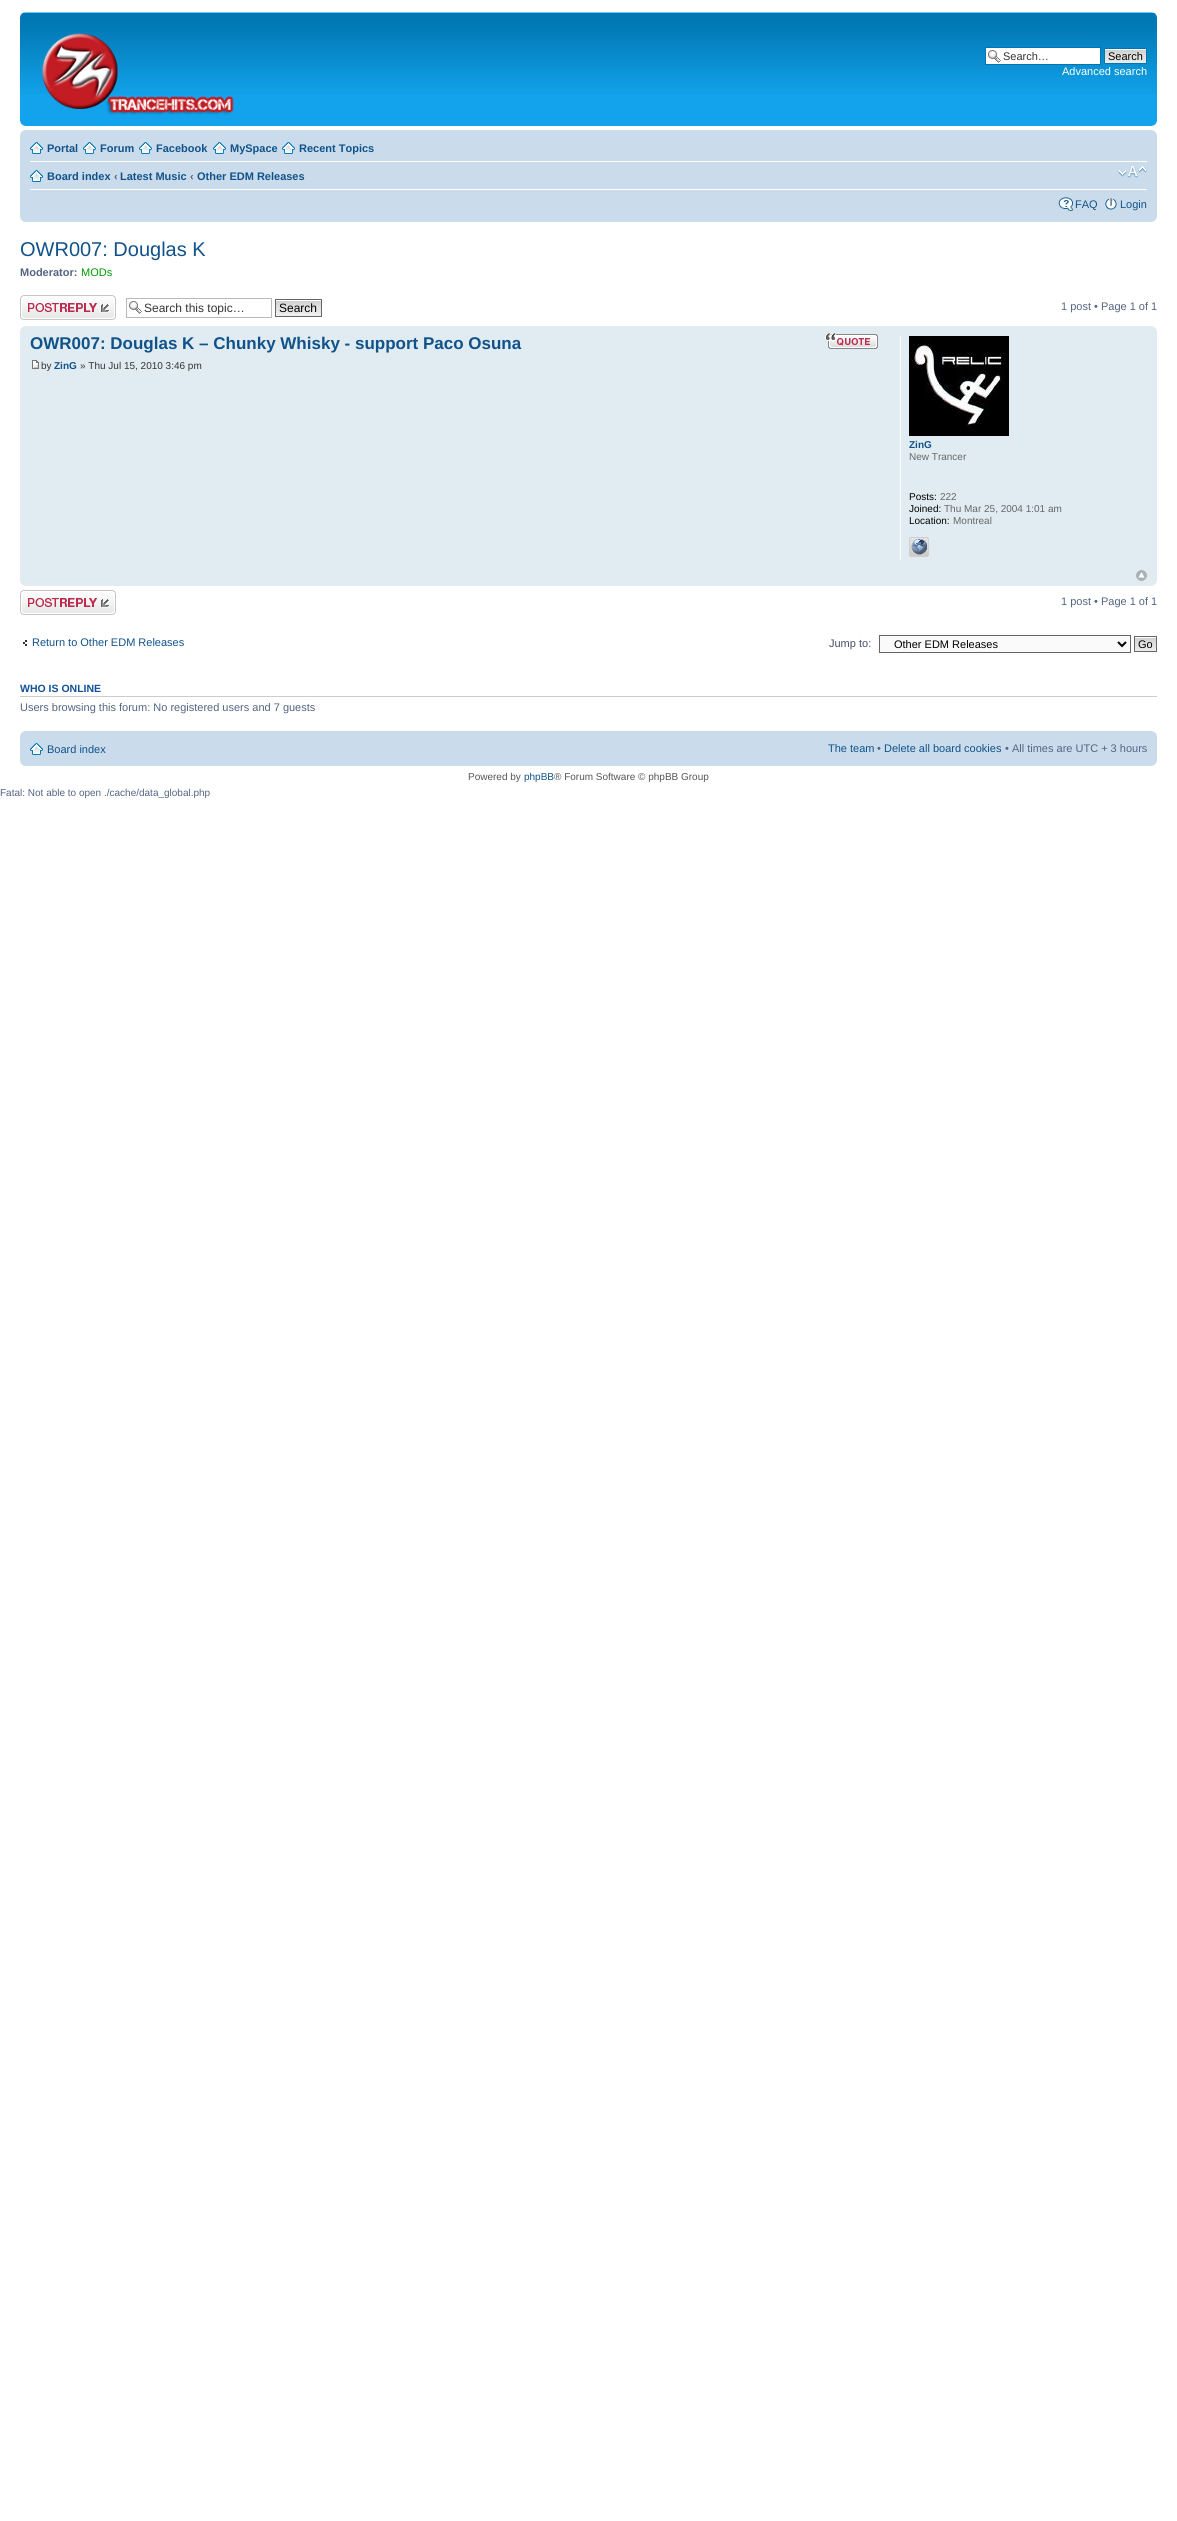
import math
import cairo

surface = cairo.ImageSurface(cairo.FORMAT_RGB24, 1177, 2521)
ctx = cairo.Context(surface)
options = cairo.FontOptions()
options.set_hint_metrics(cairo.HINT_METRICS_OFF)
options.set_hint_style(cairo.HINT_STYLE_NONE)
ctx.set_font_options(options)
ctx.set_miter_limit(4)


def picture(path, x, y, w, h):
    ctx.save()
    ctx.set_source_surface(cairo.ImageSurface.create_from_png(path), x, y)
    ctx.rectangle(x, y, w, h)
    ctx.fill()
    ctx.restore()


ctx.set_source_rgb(1, 1, 1)
ctx.paint()
ctx.set_source_rgb(0.071, 0.639, 0.922)
ctx.rectangle(20, 94, 1137, 32)
ctx.fill()
picture("img1.png", 20, 12, 1137, 82)
picture("img2.png", 20, 12, 5, 5)
picture("img3.png", 1152, 12, 5, 5)
picture("img4.png", 42, 33, 192, 82)
ctx.set_source_rgb(1, 1, 1)
ctx.rectangle(986, 48, 114, 16)
ctx.fill()
picture("img5.png", 988, 50, 13, 13)
ctx.rectangle(985.5, 47.5, 115, 17)
ctx.set_source_rgb(0, 0.459, 0.69)
ctx.set_line_width(1)
ctx.stroke()
ctx.select_font_face("Liberation Sans")
ctx.set_font_size(11)
ctx.set_source_rgb(0.2, 0.2, 0.2)
ctx.move_to(1003, 60)
ctx.show_text("Search…")
picture("img6.png", 1105, 49, 41, 14)
ctx.rectangle(1104.5, 48.5, 42, 15)
ctx.set_source_rgb(0, 0.459, 0.69)
ctx.stroke()
ctx.set_source_rgb(0, 0, 0)
ctx.move_to(1108, 60)
ctx.show_text("Search")
ctx.set_source_rgb(1, 1, 1)
ctx.move_to(1062, 75)
ctx.show_text("Advanced search")
picture("img7.png", 20, 121, 5, 5)
picture("img8.png", 1152, 121, 5, 5)
ctx.set_source_rgb(0.792, 0.863, 0.922)
ctx.rectangle(20, 130, 1137, 92)
ctx.fill()
picture("img9.png", 20, 130, 5, 5)
picture("img10.png", 1152, 130, 5, 5)
ctx.set_source_rgb(1, 1, 1)
ctx.rectangle(30, 161, 1117, 1)
ctx.fill()
picture("img11.png", 30, 142, 13, 12)
ctx.select_font_face("Liberation Sans", cairo.FONT_SLANT_NORMAL, cairo.FONT_WEIGHT_BOLD)
ctx.set_source_rgb(0.063, 0.322, 0.537)
ctx.move_to(47, 152)
ctx.show_text("Portal")
picture("img11.png", 83, 142, 13, 12)
ctx.move_to(100, 152)
ctx.show_text("Forum")
picture("img11.png", 139, 142, 13, 12)
ctx.move_to(156, 152)
ctx.show_text("Facebook")
picture("img11.png", 213, 142, 13, 12)
ctx.move_to(230, 152)
ctx.show_text("MySpace")
picture("img11.png", 282, 142, 13, 12)
ctx.move_to(299, 152)
ctx.show_text("Recent Topics")
ctx.set_source_rgb(1, 1, 1)
ctx.rectangle(30, 189, 1117, 1)
ctx.fill()
picture("img11.png", 30, 170, 13, 12)
ctx.set_source_rgb(0.063, 0.322, 0.537)
ctx.move_to(47, 180)
ctx.show_text("Board index")
ctx.set_source_rgb(0.325, 0.392, 0.51)
ctx.move_to(114, 180)
ctx.show_text("‹")
ctx.set_source_rgb(0.063, 0.322, 0.537)
ctx.move_to(120, 180)
ctx.show_text("Latest Music")
ctx.set_source_rgb(0.325, 0.392, 0.51)
ctx.move_to(190, 180)
ctx.show_text("‹")
ctx.set_source_rgb(0.063, 0.322, 0.537)
ctx.move_to(197, 180)
ctx.show_text("Other EDM Releases")
picture("img12.png", 1118, 166, 29, 12)
picture("img13.png", 1058, 197, 16, 14)
ctx.select_font_face("Liberation Sans")
ctx.move_to(1075, 208)
ctx.show_text("FAQ")
picture("img14.png", 1105, 198, 12, 12)
ctx.move_to(1120, 208)
ctx.show_text("Login")
picture("img15.png", 20, 217, 5, 5)
picture("img16.png", 1152, 217, 5, 5)
ctx.set_font_size(20)
ctx.move_to(20, 256)
ctx.show_text("OWR007: Douglas K")
ctx.select_font_face("Liberation Sans", cairo.FONT_SLANT_NORMAL, cairo.FONT_WEIGHT_BOLD)
ctx.set_font_size(11)
ctx.set_source_rgb(0.325, 0.392, 0.51)
ctx.move_to(20, 276)
ctx.show_text("Moderator:")
ctx.select_font_face("Liberation Sans")
ctx.set_source_rgb(0, 0.6, 0)
ctx.move_to(81, 276)
ctx.show_text("MODs")
picture("img17.png", 20, 295, 96, 25)
picture("img5.png", 129, 301, 13, 13)
ctx.rectangle(126.5, 298.5, 145, 19)
ctx.set_source_rgb(0.706, 0.729, 0.753)
ctx.stroke()
ctx.set_font_size(12)
ctx.set_source_rgb(0.2, 0.2, 0.2)
ctx.move_to(144, 312)
ctx.show_text("Search this topic…")
picture("img18.png", 276, 300, 45, 16)
ctx.rectangle(275.5, 299.5, 46, 17)
ctx.set_source_rgb(0.4, 0.4, 0.4)
ctx.stroke()
ctx.set_source_rgb(0, 0, 0)
ctx.move_to(279, 312)
ctx.show_text("Search")
ctx.set_font_size(11)
ctx.set_source_rgb(0.325, 0.392, 0.51)
ctx.move_to(1061, 310)
ctx.show_text("1 post • Page 1 of 1")
ctx.set_source_rgb(0.882, 0.922, 0.949)
ctx.rectangle(20, 326, 1137, 260)
ctx.fill()
picture("img19.png", 20, 326, 5, 5)
picture("img20.png", 1152, 326, 5, 5)
ctx.select_font_face("Liberation Sans", cairo.FONT_SLANT_NORMAL, cairo.FONT_WEIGHT_BOLD)
ctx.set_font_size(17)
ctx.set_source_rgb(0.063, 0.322, 0.537)
ctx.move_to(30, 349)
ctx.show_text("OWR007: Douglas K – Chunky Whisky - support Paco Osuna")
picture("img21.png", 825, 332, 11, 9)
picture("img22.png", 826, 333, 52, 16)
picture("img23.png", 32, 360, 7, 9)
ctx.select_font_face("Liberation Sans")
ctx.set_font_size(10)
ctx.set_source_rgb(0.2, 0.2, 0.2)
ctx.move_to(41, 369)
ctx.show_text("by")
ctx.select_font_face("Liberation Sans", cairo.FONT_SLANT_NORMAL, cairo.FONT_WEIGHT_BOLD)
ctx.set_source_rgb(0.063, 0.322, 0.537)
ctx.move_to(54, 369)
ctx.show_text("ZinG")
ctx.select_font_face("Liberation Sans")
ctx.set_source_rgb(0.2, 0.2, 0.2)
ctx.move_to(80, 369)
ctx.show_text("» Thu Jul 15, 2010 3:46 pm")
ctx.set_source_rgb(1, 1, 1)
ctx.rectangle(900, 336, 1, 224)
ctx.fill()
picture("img24.png", 909, 336, 100, 100)
ctx.select_font_face("Liberation Sans", cairo.FONT_SLANT_NORMAL, cairo.FONT_WEIGHT_BOLD)
ctx.set_source_rgb(0.063, 0.322, 0.537)
ctx.move_to(909, 448)
ctx.show_text("ZinG")
ctx.select_font_face("Liberation Sans")
ctx.set_source_rgb(0.4, 0.4, 0.4)
ctx.move_to(909, 460)
ctx.show_text("New Trancer")
ctx.set_source_rgb(0, 0, 0)
ctx.move_to(909, 500)
ctx.show_text("Posts:")
ctx.set_source_rgb(0.4, 0.4, 0.4)
ctx.move_to(940, 500)
ctx.show_text("222")
ctx.set_source_rgb(0, 0, 0)
ctx.move_to(909, 512)
ctx.show_text("Joined:")
ctx.set_source_rgb(0.4, 0.4, 0.4)
ctx.move_to(944, 512)
ctx.show_text("Thu Mar 25, 2004 1:01 am")
ctx.set_source_rgb(0, 0, 0)
ctx.move_to(909, 524)
ctx.show_text("Location:")
ctx.set_source_rgb(0.4, 0.4, 0.4)
ctx.move_to(953, 524)
ctx.show_text("Montreal")
picture("img25.png", 909, 537, 20, 20)
picture("img26.png", 1136, 570, 11, 11)
picture("img27.png", 20, 581, 5, 5)
picture("img28.png", 1152, 581, 5, 5)
picture("img17.png", 20, 590, 96, 25)
ctx.set_font_size(11)
ctx.set_source_rgb(0.325, 0.392, 0.51)
ctx.move_to(1061, 605)
ctx.show_text("1 post • Page 1 of 1")
picture("img29.png", 23, 640, 4, 6)
ctx.set_source_rgb(0.063, 0.322, 0.537)
ctx.move_to(32, 646)
ctx.show_text("Return to Other EDM Releases")
ctx.set_source_rgb(0.259, 0.314, 0.404)
ctx.move_to(829, 647)
ctx.show_text("Jump to:")
ctx.set_source_rgb(0.98, 0.98, 0.98)
ctx.rectangle(879.5, 635.5, 251, 17)
ctx.fill_preserve()
ctx.set_source_rgb(0.4, 0.4, 0.4)
ctx.stroke()
ctx.new_path()
ctx.move_to(1118, 642)
ctx.line_to(1122, 646)
ctx.line_to(1126, 642)
ctx.set_source_rgb(0, 0, 0)
ctx.set_line_width(2)
ctx.stroke()
ctx.move_to(894, 648)
ctx.show_text("Other EDM Releases")
picture("img30.png", 1135, 637, 21, 14)
ctx.rectangle(1134.5, 636.5, 22, 15)
ctx.set_source_rgb(0.4, 0.4, 0.4)
ctx.set_line_width(1)
ctx.stroke()
ctx.set_source_rgb(0, 0, 0)
ctx.move_to(1138, 648)
ctx.show_text("Go")
ctx.set_source_rgb(0.8, 0.8, 0.8)
ctx.rectangle(20, 696, 1137, 1)
ctx.fill()
ctx.select_font_face("Liberation Sans", cairo.FONT_SLANT_NORMAL, cairo.FONT_WEIGHT_BOLD)
ctx.set_font_size(10.5)
ctx.set_source_rgb(0.067, 0.314, 0.596)
ctx.move_to(20, 692)
ctx.show_text("WHO IS ONLINE")
ctx.select_font_face("Liberation Sans")
ctx.set_font_size(11)
ctx.set_source_rgb(0.325, 0.392, 0.51)
ctx.move_to(20, 711)
ctx.show_text("Users browsing this forum: No registered users and 7 guests")
ctx.set_source_rgb(0.792, 0.863, 0.922)
ctx.rectangle(20, 731, 1137, 35)
ctx.fill()
picture("img9.png", 20, 731, 5, 5)
picture("img10.png", 1152, 731, 5, 5)
picture("img11.png", 30, 743, 13, 12)
ctx.set_source_rgb(0.063, 0.322, 0.537)
ctx.move_to(47, 753)
ctx.show_text("Board index")
ctx.move_to(828, 752)
ctx.show_text("The team")
ctx.set_source_rgb(0.325, 0.392, 0.51)
ctx.move_to(877, 752)
ctx.show_text("•")
ctx.set_source_rgb(0.063, 0.322, 0.537)
ctx.move_to(884, 752)
ctx.show_text("Delete all board cookies")
ctx.set_source_rgb(0.325, 0.392, 0.51)
ctx.move_to(1005, 752)
ctx.show_text("• All times are UTC + 3 hours")
picture("img15.png", 20, 761, 5, 5)
picture("img16.png", 1152, 761, 5, 5)
ctx.set_font_size(10)
ctx.set_source_rgb(0.333, 0.333, 0.333)
ctx.move_to(468, 780)
ctx.show_text("Powered by")
ctx.set_source_rgb(0.063, 0.322, 0.537)
ctx.move_to(524, 780)
ctx.show_text("phpBB")
ctx.set_source_rgb(0.333, 0.333, 0.333)
ctx.move_to(554, 780)
ctx.show_text("® Forum Software © phpBB Group")
ctx.set_source_rgb(0.325, 0.392, 0.51)
ctx.move_to(0, 796)
ctx.show_text("Fatal: Not able to open ./cache/data_global.php")
surface.write_to_png("page.png")
